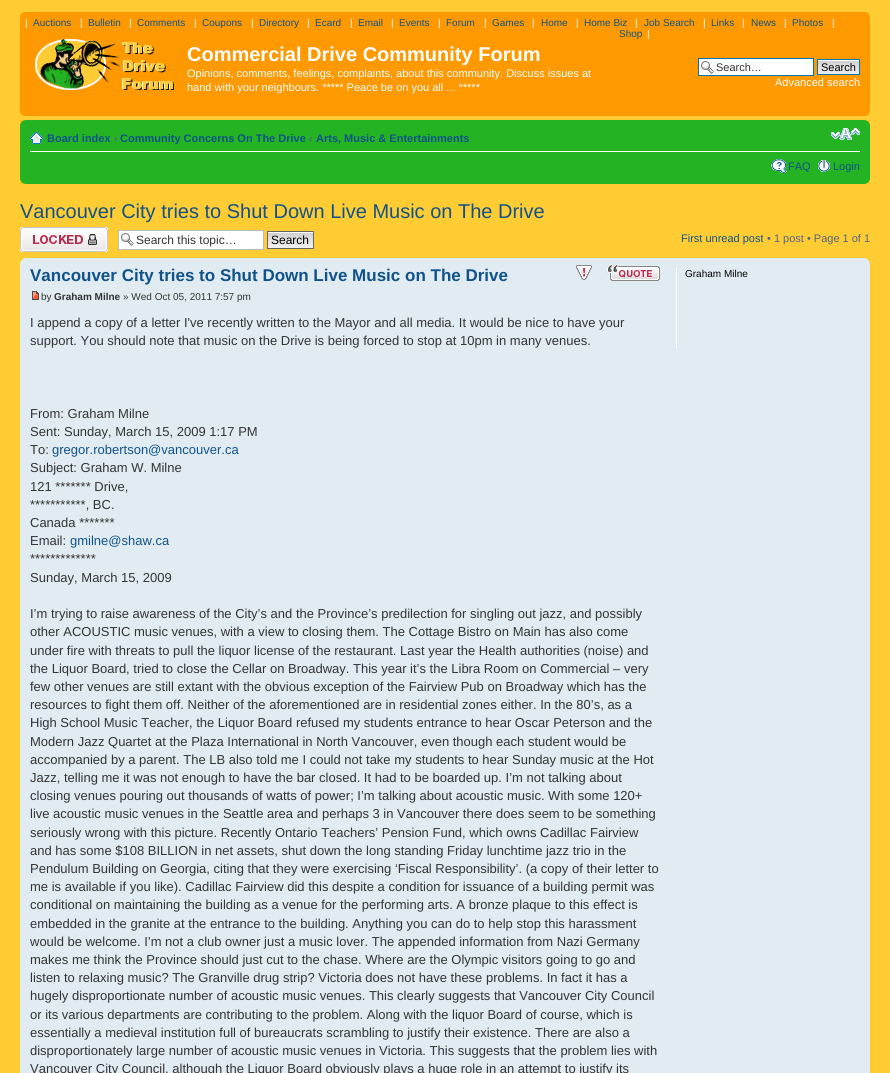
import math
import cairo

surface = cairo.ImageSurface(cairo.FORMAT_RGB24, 890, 1073)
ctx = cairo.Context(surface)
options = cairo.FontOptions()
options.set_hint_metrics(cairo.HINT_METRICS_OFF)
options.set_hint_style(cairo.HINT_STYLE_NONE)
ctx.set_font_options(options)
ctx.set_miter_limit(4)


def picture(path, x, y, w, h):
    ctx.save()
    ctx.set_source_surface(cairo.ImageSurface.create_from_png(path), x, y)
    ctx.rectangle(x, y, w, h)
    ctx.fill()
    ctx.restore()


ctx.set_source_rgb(1, 0.8, 0.2)
ctx.paint()
ctx.set_source_rgb(1, 0.6, 0)
ctx.rectangle(20, 12, 850, 104)
ctx.fill()
picture("img1.png", 20, 12, 5, 5)
picture("img2.png", 865, 12, 5, 5)
ctx.select_font_face("Liberation Sans")
ctx.set_font_size(10)
ctx.set_source_rgb(1, 1, 1)
ctx.move_to(25, 26)
ctx.show_text("|")
ctx.set_source_rgb(0.063, 0.322, 0.537)
ctx.move_to(33, 26)
ctx.show_text("Auctions")
ctx.set_source_rgb(1, 1, 1)
ctx.move_to(80, 26)
ctx.show_text("|")
ctx.set_source_rgb(0.063, 0.322, 0.537)
ctx.move_to(88, 26)
ctx.show_text("Bulletin")
ctx.set_source_rgb(1, 1, 1)
ctx.move_to(129, 26)
ctx.show_text("|")
ctx.set_source_rgb(0.063, 0.322, 0.537)
ctx.move_to(137, 26)
ctx.show_text("Comments")
ctx.set_source_rgb(1, 1, 1)
ctx.move_to(194, 26)
ctx.show_text("|")
ctx.set_source_rgb(0.063, 0.322, 0.537)
ctx.move_to(202, 26)
ctx.show_text("Coupons")
ctx.set_source_rgb(1, 1, 1)
ctx.move_to(251, 26)
ctx.show_text("|")
ctx.set_source_rgb(0.063, 0.322, 0.537)
ctx.move_to(259, 26)
ctx.show_text("Directory")
ctx.set_source_rgb(1, 1, 1)
ctx.move_to(307, 26)
ctx.show_text("|")
ctx.set_source_rgb(0.063, 0.322, 0.537)
ctx.move_to(315, 26)
ctx.show_text("Ecard")
ctx.set_source_rgb(1, 1, 1)
ctx.move_to(350, 26)
ctx.show_text("|")
ctx.set_source_rgb(0.063, 0.322, 0.537)
ctx.move_to(358, 26)
ctx.show_text("Email")
ctx.set_source_rgb(1, 1, 1)
ctx.move_to(391, 26)
ctx.show_text("|")
ctx.set_source_rgb(0.063, 0.322, 0.537)
ctx.move_to(399, 26)
ctx.show_text("Events")
ctx.set_source_rgb(1, 1, 1)
ctx.move_to(438, 26)
ctx.show_text("|")
ctx.set_source_rgb(0.063, 0.322, 0.537)
ctx.move_to(446, 26)
ctx.show_text("Forum")
ctx.set_source_rgb(1, 1, 1)
ctx.move_to(484, 26)
ctx.show_text("|")
ctx.set_source_rgb(0.063, 0.322, 0.537)
ctx.move_to(492, 26)
ctx.show_text("Games")
ctx.set_source_rgb(1, 1, 1)
ctx.move_to(532, 26)
ctx.show_text("|")
ctx.set_source_rgb(0.063, 0.322, 0.537)
ctx.move_to(541, 26)
ctx.show_text("Home")
ctx.set_source_rgb(1, 1, 1)
ctx.move_to(576, 26)
ctx.show_text("|")
ctx.set_source_rgb(0.063, 0.322, 0.537)
ctx.move_to(584, 26)
ctx.show_text("Home Biz")
ctx.set_source_rgb(1, 1, 1)
ctx.move_to(635, 26)
ctx.show_text("|")
ctx.set_source_rgb(0.063, 0.322, 0.537)
ctx.move_to(644, 26)
ctx.show_text("Job Search")
ctx.set_source_rgb(1, 1, 1)
ctx.move_to(703, 26)
ctx.show_text("|")
ctx.set_source_rgb(0.063, 0.322, 0.537)
ctx.move_to(711, 26)
ctx.show_text("Links")
ctx.set_source_rgb(1, 1, 1)
ctx.move_to(742, 26)
ctx.show_text("|")
ctx.set_source_rgb(0.063, 0.322, 0.537)
ctx.move_to(751, 26)
ctx.show_text("News")
ctx.set_source_rgb(1, 1, 1)
ctx.move_to(784, 26)
ctx.show_text("|")
ctx.set_source_rgb(0.063, 0.322, 0.537)
ctx.move_to(792, 26)
ctx.show_text("Photos")
ctx.set_source_rgb(1, 1, 1)
ctx.move_to(832, 26)
ctx.show_text("|")
ctx.set_source_rgb(0.063, 0.322, 0.537)
ctx.move_to(619, 37)
ctx.show_text("Shop")
ctx.set_source_rgb(1, 1, 1)
ctx.move_to(647, 37)
ctx.show_text("|")
picture("img3.png", 35, 38, 139, 52)
ctx.select_font_face("Liberation Sans", cairo.FONT_SLANT_NORMAL, cairo.FONT_WEIGHT_BOLD)
ctx.set_font_size(20)
ctx.move_to(187, 61)
ctx.show_text("Commercial Drive Community Forum")
ctx.select_font_face("Liberation Sans")
ctx.set_font_size(11)
ctx.move_to(187, 77)
ctx.show_text("Opinions, comments, feelings, complaints, about this community. Discuss issues at")
ctx.move_to(187, 91)
ctx.show_text("hand with your neighbours. ***** Peace be on you all ... *****")
ctx.rectangle(699, 59, 114, 16)
ctx.fill()
picture("img4.png", 701, 61, 13, 13)
ctx.rectangle(698.5, 58.5, 115, 17)
ctx.set_source_rgb(0, 0.459, 0.69)
ctx.set_line_width(1)
ctx.stroke()
ctx.set_source_rgb(0.2, 0.2, 0.2)
ctx.move_to(716, 71)
ctx.show_text("Search…")
picture("img5.png", 818, 60, 41, 14)
ctx.rectangle(817.5, 59.5, 42, 15)
ctx.set_source_rgb(0, 0.459, 0.69)
ctx.stroke()
ctx.set_source_rgb(0, 0, 0)
ctx.move_to(821, 71)
ctx.show_text("Search")
ctx.set_source_rgb(1, 1, 1)
ctx.move_to(775, 86)
ctx.show_text("Advanced search")
picture("img6.png", 20, 111, 5, 5)
picture("img7.png", 865, 111, 5, 5)
ctx.set_source_rgb(0.141, 0.706, 0.137)
ctx.rectangle(20, 120, 850, 64)
ctx.fill()
picture("img8.png", 20, 120, 6, 5)
picture("img9.png", 864, 120, 6, 5)
ctx.set_source_rgb(1, 1, 1)
ctx.rectangle(30, 151, 830, 1)
ctx.fill()
picture("img10.png", 30, 132, 13, 12)
ctx.select_font_face("Liberation Sans", cairo.FONT_SLANT_NORMAL, cairo.FONT_WEIGHT_BOLD)
ctx.set_source_rgb(0.063, 0.322, 0.537)
ctx.move_to(47, 142)
ctx.show_text("Board index")
ctx.set_source_rgb(0.325, 0.392, 0.51)
ctx.move_to(114, 142)
ctx.show_text("‹")
ctx.set_source_rgb(0.063, 0.322, 0.537)
ctx.move_to(120, 142)
ctx.show_text("Community Concerns On The Drive")
ctx.set_source_rgb(0.325, 0.392, 0.51)
ctx.move_to(309, 142)
ctx.show_text("‹")
ctx.set_source_rgb(0.063, 0.322, 0.537)
ctx.move_to(316, 142)
ctx.show_text("Arts, Music & Entertainments")
picture("img11.png", 831, 128, 29, 12)
picture("img12.png", 771, 159, 16, 14)
ctx.select_font_face("Liberation Sans")
ctx.move_to(788, 170)
ctx.show_text("FAQ")
picture("img13.png", 818, 160, 12, 12)
ctx.move_to(833, 170)
ctx.show_text("Login")
picture("img14.png", 20, 179, 5, 5)
picture("img15.png", 865, 179, 5, 5)
ctx.set_font_size(20)
ctx.move_to(20, 218)
ctx.show_text("Vancouver City tries to Shut Down Live Music on The Drive")
picture("img16.png", 20, 227, 88, 25)
ctx.set_source_rgb(1, 1, 1)
ctx.rectangle(119, 231, 144, 18)
ctx.fill()
picture("img4.png", 121, 233, 13, 13)
ctx.rectangle(118.5, 230.5, 145, 19)
ctx.set_source_rgb(0.706, 0.729, 0.753)
ctx.stroke()
ctx.set_font_size(12)
ctx.set_source_rgb(0.2, 0.2, 0.2)
ctx.move_to(136, 244)
ctx.show_text("Search this topic…")
picture("img17.png", 268, 232, 45, 16)
ctx.rectangle(267.5, 231.5, 46, 17)
ctx.set_source_rgb(0.4, 0.4, 0.4)
ctx.stroke()
ctx.set_source_rgb(0, 0, 0)
ctx.move_to(271, 244)
ctx.show_text("Search")
ctx.set_font_size(11)
ctx.set_source_rgb(0.063, 0.322, 0.537)
ctx.move_to(681, 242)
ctx.show_text("First unread post")
ctx.set_source_rgb(0.325, 0.392, 0.51)
ctx.move_to(767, 242)
ctx.show_text("• 1 post • Page 1 of 1")
ctx.set_source_rgb(0.882, 0.922, 0.949)
ctx.rectangle(20, 258, 850, 815)
ctx.fill()
picture("img18.png", 20, 258, 6, 5)
picture("img19.png", 864, 258, 6, 5)
ctx.select_font_face("Liberation Sans", cairo.FONT_SLANT_NORMAL, cairo.FONT_WEIGHT_BOLD)
ctx.set_font_size(17)
ctx.set_source_rgb(0.063, 0.322, 0.537)
ctx.move_to(30, 281)
ctx.show_text("Vancouver City tries to Shut Down Live Music on The Drive")
picture("img20.png", 576, 265, 16, 15)
picture("img21.png", 607, 264, 11, 9)
picture("img22.png", 608, 265, 52, 16)
picture("img23.png", 32, 291, 7, 9)
ctx.select_font_face("Liberation Sans")
ctx.set_font_size(10)
ctx.set_source_rgb(0.2, 0.2, 0.2)
ctx.move_to(41, 300)
ctx.show_text("by")
ctx.select_font_face("Liberation Sans", cairo.FONT_SLANT_NORMAL, cairo.FONT_WEIGHT_BOLD)
ctx.move_to(54, 300)
ctx.show_text("Graham Milne")
ctx.select_font_face("Liberation Sans")
ctx.move_to(123, 300)
ctx.show_text("» Wed Oct 05, 2011 7:57 pm")
ctx.set_font_size(13)
ctx.move_to(30, 327)
ctx.show_text("I append a copy of a letter I've recently written to the Mayor and all media. It would be nice to have your")
ctx.move_to(30, 345)
ctx.show_text("support. You should note that music on the Drive is being forced to stop at 10pm in many venues.")
ctx.move_to(30, 418)
ctx.show_text("From: Graham Milne")
ctx.move_to(30, 436)
ctx.show_text("Sent: Sunday, March 15, 2009 1:17 PM")
ctx.move_to(30, 454)
ctx.show_text("To:")
ctx.set_source_rgb(0.063, 0.322, 0.537)
ctx.move_to(52, 454)
ctx.show_text("gregor.robertson@vancouver.ca")
ctx.set_source_rgb(0.2, 0.2, 0.2)
ctx.move_to(30, 472)
ctx.show_text("Subject: Graham W. Milne")
ctx.move_to(30, 491)
ctx.show_text("121 ******* Drive,")
ctx.move_to(30, 509)
ctx.show_text("***********, BC.")
ctx.move_to(30, 527)
ctx.show_text("Canada *******")
ctx.move_to(30, 545)
ctx.show_text("Email:")
ctx.set_source_rgb(0.063, 0.322, 0.537)
ctx.move_to(70, 545)
ctx.show_text("gmilne@shaw.ca")
ctx.set_source_rgb(0.2, 0.2, 0.2)
ctx.move_to(30, 563)
ctx.show_text("*************")
ctx.move_to(30, 582)
ctx.show_text("Sunday, March 15, 2009")
ctx.move_to(30, 618)
ctx.show_text("I’m trying to raise awareness of the City’s and the Province’s predilection for singling out jazz, and possibly")
ctx.move_to(30, 636)
ctx.show_text("other ACOUSTIC music venues, with a view to closing them. The Cottage Bistro on Main has also come")
ctx.move_to(30, 655)
ctx.show_text("under fire with threats to pull the liquor license of the restaurant. Last year the Health authorities (noise) and")
ctx.move_to(30, 673)
ctx.show_text("the Liquor Board, tried to close the Cellar on Broadway. This year it’s the Libra Room on Commercial – very")
ctx.move_to(30, 691)
ctx.show_text("few other venues are still extant with the obvious exception of the Fairview Pub on Broadway which has the")
ctx.move_to(30, 709)
ctx.show_text("resources to fight them off. Neither of the aforementioned are in residential zones either. In the 80’s, as a")
ctx.move_to(30, 727)
ctx.show_text("High School Music Teacher, the Liquor Board refused my students entrance to hear Oscar Peterson and the")
ctx.move_to(30, 746)
ctx.show_text("Modern Jazz Quartet at the Plaza International in North Vancouver, even though each student would be")
ctx.move_to(30, 764)
ctx.show_text("accompanied by a parent. The LB also told me I could not take my students to hear Sunday music at the Hot")
ctx.move_to(30, 782)
ctx.show_text("Jazz, telling me it was not enough to have the bar closed. It had to be boarded up. I’m not talking about")
ctx.move_to(30, 800)
ctx.show_text("closing venues pouring out thousands of watts of power; I’m talking about acoustic music. With some 120+")
ctx.move_to(30, 818)
ctx.show_text("live acoustic music venues in the Seattle area and perhaps 3 in Vancouver there does seem to be something")
ctx.move_to(30, 837)
ctx.show_text("seriously wrong with this picture. Recently Ontario Teachers’ Pension Fund, which owns Cadillac Fairview")
ctx.move_to(30, 855)
ctx.show_text("and has some $108 BILLION in net assets, shut down the long standing Friday lunchtime jazz trio in the")
ctx.move_to(30, 873)
ctx.show_text("Pendulum Building on Georgia, citing that they were exercising ‘Fiscal Responsibility’. (a copy of their letter to")
ctx.move_to(30, 891)
ctx.show_text("me is available if you like). Cadillac Fairview did this despite a condition for issuance of a building permit was")
ctx.move_to(30, 909)
ctx.show_text("conditional on maintaining the building as a venue for the performing arts. A bronze plaque to this effect is")
ctx.move_to(30, 928)
ctx.show_text("embedded in the granite at the entrance to the building. Anything you can do to help stop this harassment")
ctx.move_to(30, 946)
ctx.show_text("would be welcome. I’m not a club owner just a music lover. The appended information from Nazi Germany")
ctx.move_to(30, 964)
ctx.show_text("makes me think the Province should just cut to the chase. Where are the Olympic visitors going to go and")
ctx.move_to(30, 982)
ctx.show_text("listen to relaxing music? The Granville drug strip? Victoria does not have these problems. In fact it has a")
ctx.move_to(30, 1000)
ctx.show_text("hugely disproportionate number of acoustic music venues. This clearly suggests that Vancouver City Council")
ctx.move_to(30, 1019)
ctx.show_text("or its various departments are contributing to the problem. Along with the liquor Board of course, which is")
ctx.move_to(30, 1037)
ctx.show_text("essentially a medieval institution full of bureaucrats scrambling to justify their existence. There are also a")
ctx.move_to(30, 1055)
ctx.show_text("disproportionately large number of acoustic music venues in Victoria. This suggests that the problem lies with")
ctx.move_to(30, 1073)
ctx.show_text("Vancouver City Council, although the Liquor Board obviously plays a huge role in an attempt to justify its")
ctx.set_source_rgb(1, 1, 1)
ctx.rectangle(676, 268, 1, 80)
ctx.fill()
ctx.set_font_size(10)
ctx.set_source_rgb(0, 0, 0)
ctx.move_to(685, 277)
ctx.show_text("Graham Milne")
surface.write_to_png("page.png")
